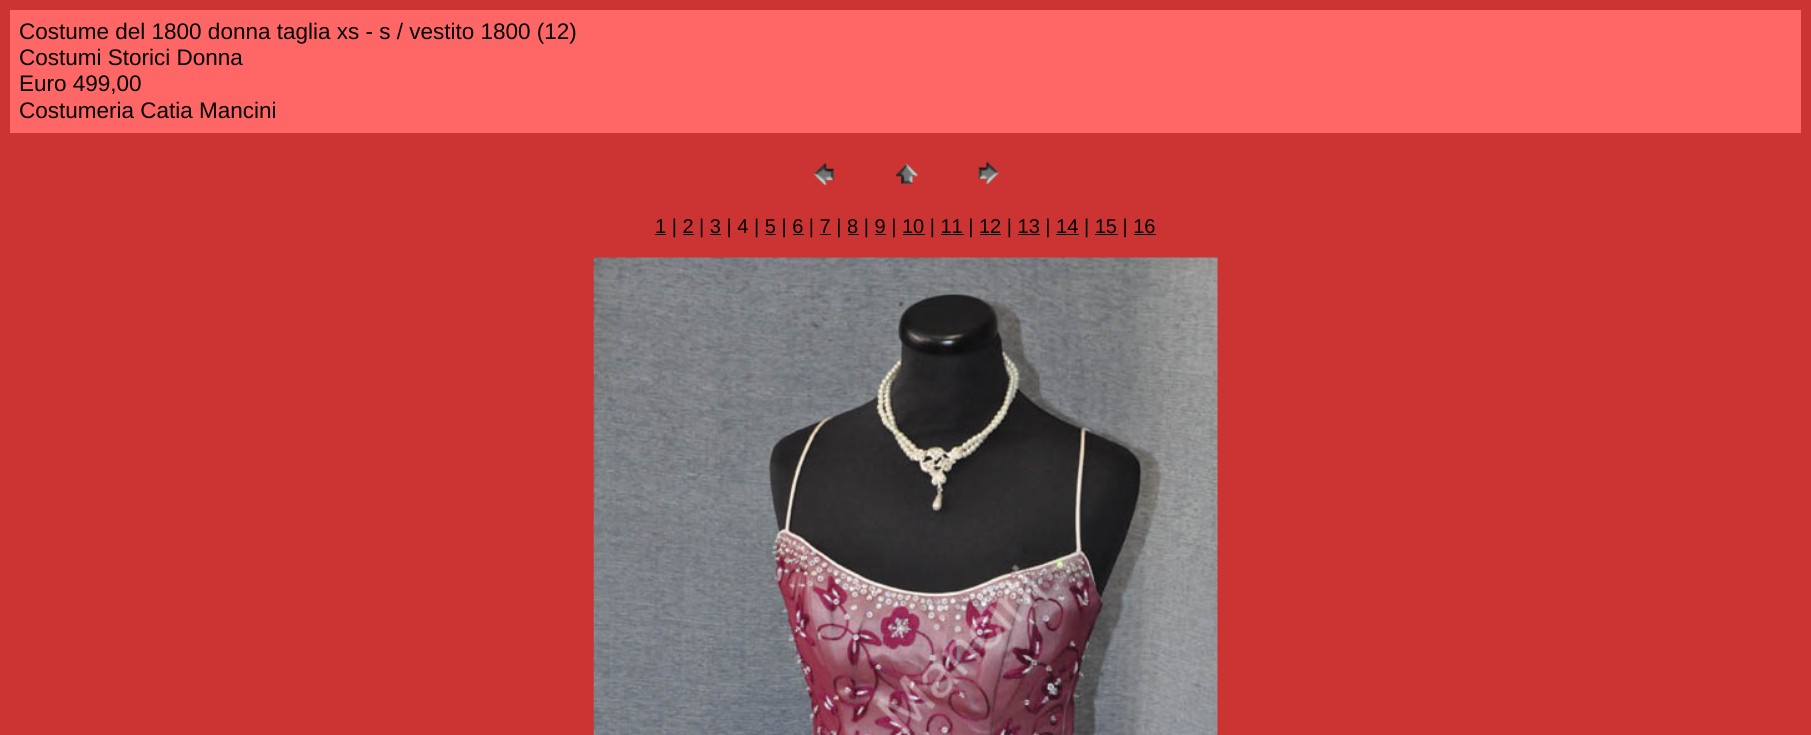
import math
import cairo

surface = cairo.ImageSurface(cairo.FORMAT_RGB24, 1811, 735)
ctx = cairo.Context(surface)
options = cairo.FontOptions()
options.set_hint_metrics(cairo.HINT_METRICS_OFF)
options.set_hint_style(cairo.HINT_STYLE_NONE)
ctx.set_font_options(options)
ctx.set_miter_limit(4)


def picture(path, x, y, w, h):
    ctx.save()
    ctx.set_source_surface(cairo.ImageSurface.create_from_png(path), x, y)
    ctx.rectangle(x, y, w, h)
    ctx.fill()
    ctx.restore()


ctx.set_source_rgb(0.8, 0.2, 0.2)
ctx.paint()
ctx.set_source_rgb(1, 0.4, 0.4)
ctx.rectangle(10, 10, 1791, 123)
ctx.fill()
ctx.select_font_face("Liberation Sans")
ctx.set_font_size(22.5)
ctx.set_source_rgb(0, 0, 0)
ctx.move_to(19, 39)
ctx.show_text("Costume del 1800 donna taglia xs - s / vestito 1800 (12)")
ctx.move_to(19, 65)
ctx.show_text("Costumi Storici Donna")
ctx.move_to(19, 91)
ctx.show_text("Euro 499,00")
ctx.move_to(19, 118)
ctx.show_text("Costumeria Catia Mancini")
picture("img1.png", 813, 163, 21, 23)
picture("img2.png", 896, 163, 22, 21)
picture("img3.png", 978, 162, 21, 22)
ctx.rectangle(655, 234, 11, 1)
ctx.fill()
ctx.set_font_size(20)
ctx.move_to(655, 233)
ctx.show_text("1 | 2 | 3 | 4 | 5 | 6 | 7 | 8 | 9 | 10 | 11 | 12 | 13 | 14 | 15 | 16")
ctx.rectangle(683, 234, 11, 1)
ctx.fill()
ctx.rectangle(710, 234, 11, 1)
ctx.fill()
ctx.rectangle(765, 234, 11, 1)
ctx.fill()
ctx.rectangle(793, 234, 11, 1)
ctx.fill()
ctx.rectangle(820, 234, 11, 1)
ctx.fill()
ctx.rectangle(848, 234, 11, 1)
ctx.fill()
ctx.rectangle(875, 234, 11, 1)
ctx.fill()
ctx.rectangle(903, 234, 22, 1)
ctx.fill()
ctx.rectangle(941, 234, 23, 1)
ctx.fill()
ctx.rectangle(980, 234, 21, 1)
ctx.fill()
ctx.rectangle(1018, 234, 22, 1)
ctx.fill()
ctx.rectangle(1056, 234, 23, 1)
ctx.fill()
ctx.rectangle(1095, 234, 23, 1)
ctx.fill()
ctx.rectangle(1134, 234, 22, 1)
ctx.fill()
picture("img4.png", 593, 257, 625, 478)
surface.write_to_png("page.png")
